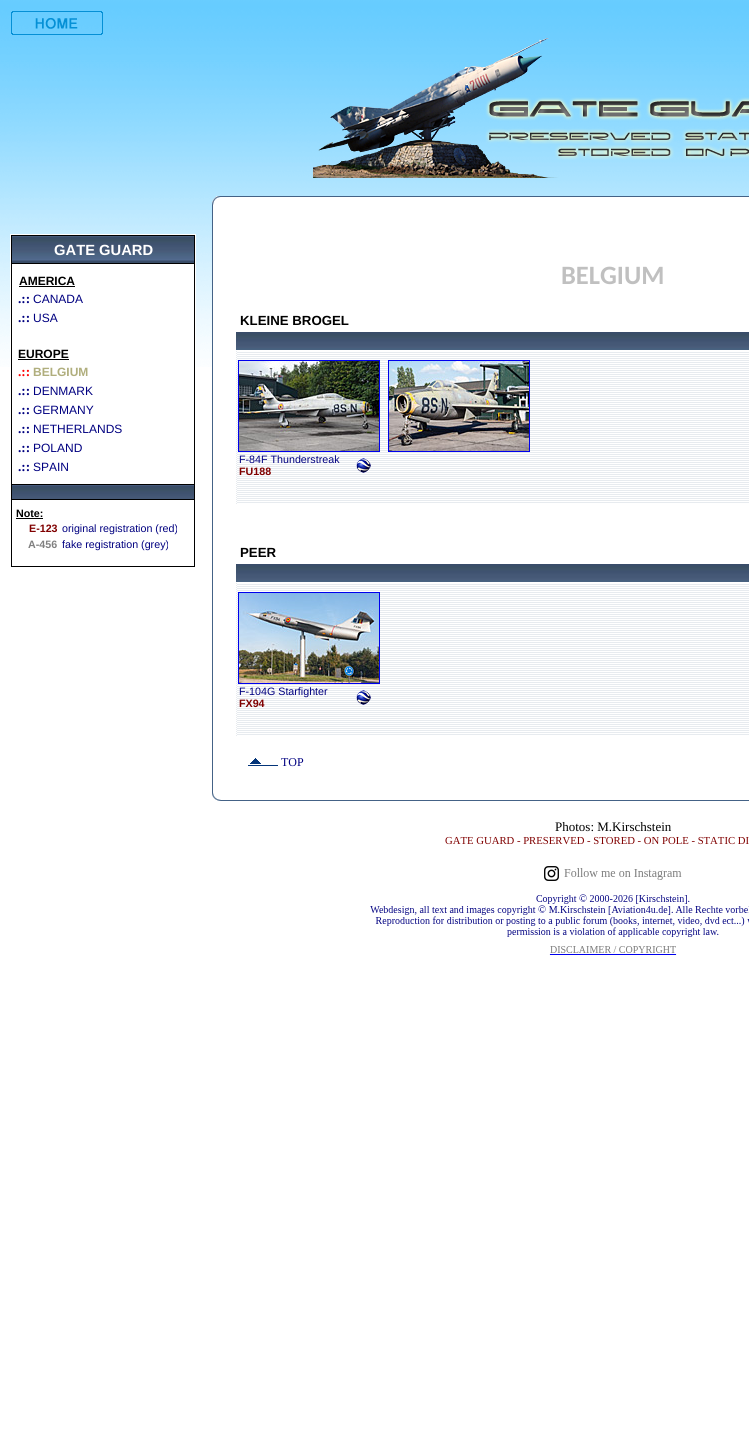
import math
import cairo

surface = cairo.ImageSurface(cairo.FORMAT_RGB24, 749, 1439)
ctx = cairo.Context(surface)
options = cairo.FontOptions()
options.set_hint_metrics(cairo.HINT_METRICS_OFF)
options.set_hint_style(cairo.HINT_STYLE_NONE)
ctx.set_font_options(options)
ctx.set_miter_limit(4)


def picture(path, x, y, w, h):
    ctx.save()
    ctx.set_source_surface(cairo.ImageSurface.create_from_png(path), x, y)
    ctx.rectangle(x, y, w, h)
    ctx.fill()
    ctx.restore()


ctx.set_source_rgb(1, 1, 1)
ctx.paint()
picture("img1.png", 0, 0, 749, 367)
picture("img2.png", 11, 11, 92, 24)
picture("img3.png", 313, 38, 436, 140)
ctx.set_source_rgb(1, 1, 1)
ctx.rectangle(10, 234, 186, 133)
ctx.fill()
picture("img4.png", 12, 236, 182, 27)
ctx.set_source_rgb(0, 0, 0)
ctx.rectangle(11, 235, 184, 1)
ctx.fill()
ctx.rectangle(11, 263, 184, 1)
ctx.fill()
ctx.rectangle(11, 484, 184, 1)
ctx.fill()
ctx.rectangle(11, 499, 184, 1)
ctx.fill()
ctx.rectangle(194, 499, 1, 68)
ctx.fill()
ctx.rectangle(194, 484, 1, 16)
ctx.fill()
ctx.rectangle(194, 263, 1, 222)
ctx.fill()
ctx.rectangle(194, 235, 1, 29)
ctx.fill()
ctx.rectangle(11, 566, 184, 1)
ctx.fill()
ctx.rectangle(11, 499, 1, 68)
ctx.fill()
ctx.rectangle(11, 484, 1, 16)
ctx.fill()
ctx.rectangle(11, 263, 1, 222)
ctx.fill()
ctx.rectangle(11, 235, 1, 29)
ctx.fill()
ctx.select_font_face("Liberation Sans", cairo.FONT_SLANT_NORMAL, cairo.FONT_WEIGHT_BOLD)
ctx.set_font_size(14.75)
ctx.set_source_rgb(1, 1, 1)
ctx.move_to(54, 255)
ctx.show_text("GATE GUARD")
ctx.set_font_size(12)
ctx.set_source_rgb(0, 0, 0)
ctx.move_to(19, 285)
ctx.show_text("AMERICA")
ctx.rectangle(19, 286, 56, 1)
ctx.fill()
ctx.select_font_face("Liberation Serif", cairo.FONT_SLANT_NORMAL, cairo.FONT_WEIGHT_BOLD)
ctx.set_font_size(13.25)
ctx.set_source_rgb(0, 0, 0.502)
ctx.move_to(18, 303)
ctx.show_text(".::")
ctx.select_font_face("Liberation Sans")
ctx.set_font_size(12)
ctx.move_to(33, 303)
ctx.show_text("CANADA")
ctx.select_font_face("Liberation Serif", cairo.FONT_SLANT_NORMAL, cairo.FONT_WEIGHT_BOLD)
ctx.set_font_size(13.25)
ctx.move_to(18, 322)
ctx.show_text(".::")
ctx.select_font_face("Liberation Sans")
ctx.set_font_size(12)
ctx.move_to(33, 322)
ctx.show_text("USA")
ctx.select_font_face("Liberation Sans", cairo.FONT_SLANT_NORMAL, cairo.FONT_WEIGHT_BOLD)
ctx.set_source_rgb(0, 0, 0)
ctx.move_to(18, 358)
ctx.show_text("EUROPE")
ctx.rectangle(18, 359, 51, 1)
ctx.fill()
ctx.select_font_face("Liberation Serif", cairo.FONT_SLANT_NORMAL, cairo.FONT_WEIGHT_BOLD)
ctx.set_font_size(13.25)
ctx.set_source_rgb(1, 0, 0)
ctx.move_to(18, 376)
ctx.show_text(".::")
ctx.select_font_face("Liberation Sans", cairo.FONT_SLANT_NORMAL, cairo.FONT_WEIGHT_BOLD)
ctx.set_font_size(12)
ctx.set_source_rgb(0.69, 0.682, 0.49)
ctx.move_to(33, 376)
ctx.show_text("BELGIUM")
ctx.select_font_face("Liberation Serif", cairo.FONT_SLANT_NORMAL, cairo.FONT_WEIGHT_BOLD)
ctx.set_font_size(13.25)
ctx.set_source_rgb(0, 0, 0.502)
ctx.move_to(18, 395)
ctx.show_text(".::")
ctx.select_font_face("Liberation Sans")
ctx.set_font_size(12)
ctx.move_to(33, 395)
ctx.show_text("DENMARK")
ctx.select_font_face("Liberation Serif", cairo.FONT_SLANT_NORMAL, cairo.FONT_WEIGHT_BOLD)
ctx.set_font_size(13.25)
ctx.move_to(18, 414)
ctx.show_text(".::")
ctx.select_font_face("Liberation Sans")
ctx.set_font_size(12)
ctx.move_to(33, 414)
ctx.show_text("GERMANY")
ctx.select_font_face("Liberation Serif", cairo.FONT_SLANT_NORMAL, cairo.FONT_WEIGHT_BOLD)
ctx.set_font_size(13.25)
ctx.move_to(18, 433)
ctx.show_text(".::")
ctx.select_font_face("Liberation Sans")
ctx.set_font_size(12)
ctx.move_to(33, 433)
ctx.show_text("NETHERLANDS")
ctx.select_font_face("Liberation Serif", cairo.FONT_SLANT_NORMAL, cairo.FONT_WEIGHT_BOLD)
ctx.set_font_size(13.25)
ctx.move_to(18, 452)
ctx.show_text(".::")
ctx.select_font_face("Liberation Sans")
ctx.set_font_size(12)
ctx.move_to(33, 452)
ctx.show_text("POLAND")
ctx.select_font_face("Liberation Serif", cairo.FONT_SLANT_NORMAL, cairo.FONT_WEIGHT_BOLD)
ctx.set_font_size(13.25)
ctx.move_to(18, 471)
ctx.show_text(".::")
ctx.select_font_face("Liberation Sans")
ctx.set_font_size(12)
ctx.move_to(33, 471)
ctx.show_text("SPAIN")
picture("img5.png", 12, 485, 182, 14)
ctx.select_font_face("Liberation Sans", cairo.FONT_SLANT_NORMAL, cairo.FONT_WEIGHT_BOLD)
ctx.set_font_size(10.7)
ctx.set_source_rgb(0, 0, 0)
ctx.move_to(16, 517)
ctx.show_text("Note:")
ctx.rectangle(16, 518, 27, 1)
ctx.fill()
ctx.set_source_rgb(0.502, 0, 0)
ctx.move_to(29, 532)
ctx.show_text("E-123")
ctx.select_font_face("Liberation Sans")
ctx.set_source_rgb(0, 0, 0.502)
ctx.move_to(62, 532)
ctx.show_text("original registration (red)")
ctx.select_font_face("Liberation Sans", cairo.FONT_SLANT_NORMAL, cairo.FONT_WEIGHT_BOLD)
ctx.set_source_rgb(0.502, 0.502, 0.502)
ctx.move_to(28, 548)
ctx.show_text("A-456")
ctx.select_font_face("Liberation Sans")
ctx.set_source_rgb(0, 0, 0.502)
ctx.move_to(62, 548)
ctx.show_text("fake registration (grey)")
picture("img6.png", 212, 196, 9, 9)
ctx.set_source_rgb(1, 1, 1)
ctx.rectangle(221, 197, 528, 8)
ctx.fill()
ctx.set_source_rgb(0.267, 0.384, 0.525)
ctx.rectangle(221, 196, 528, 1)
ctx.fill()
ctx.set_source_rgb(1, 1, 1)
ctx.rectangle(213, 205, 536, 162)
ctx.fill()
ctx.set_source_rgb(0.267, 0.384, 0.525)
ctx.rectangle(212, 205, 1, 587)
ctx.fill()
ctx.select_font_face("Carlito", cairo.FONT_SLANT_NORMAL, cairo.FONT_WEIGHT_BOLD)
ctx.set_font_size(26.5)
ctx.set_source_rgb(0.753, 0.753, 0.753)
ctx.move_to(561, 284)
ctx.show_text("BELGIUM")
ctx.select_font_face("Liberation Sans", cairo.FONT_SLANT_NORMAL, cairo.FONT_WEIGHT_BOLD)
ctx.set_font_size(13.25)
ctx.set_source_rgb(0, 0, 0)
ctx.move_to(240, 325)
ctx.show_text("KLEINE BROGEL")
picture("img7.png", 236, 332, 513, 18)
picture("img8.png", 236, 351, 1, 153)
picture("img9.png", 237, 351, 512, 153)
ctx.rectangle(388.5, 360.5, 141, 91)
ctx.set_source_rgb(0, 0, 0.933)
ctx.set_line_width(1)
ctx.stroke()
picture("img10.png", 389, 361, 140, 90)
ctx.rectangle(238.5, 360.5, 141, 91)
ctx.stroke()
picture("img11.png", 239, 361, 140, 90)
ctx.select_font_face("Liberation Sans")
ctx.set_font_size(10.7)
ctx.set_source_rgb(0, 0, 0.502)
ctx.move_to(239, 463)
ctx.show_text("F-84F Thunderstreak")
ctx.select_font_face("Liberation Sans", cairo.FONT_SLANT_NORMAL, cairo.FONT_WEIGHT_BOLD)
ctx.set_source_rgb(0.502, 0, 0)
ctx.move_to(239, 475)
ctx.show_text("FU188")
picture("img12.png", 356, 458, 15, 15)
ctx.set_font_size(13.25)
ctx.set_source_rgb(0, 0, 0)
ctx.move_to(240, 557)
ctx.show_text("PEER")
picture("img7.png", 236, 564, 513, 18)
picture("img8.png", 236, 583, 1, 153)
picture("img9.png", 237, 583, 512, 153)
ctx.rectangle(238.5, 592.5, 141, 91)
ctx.set_source_rgb(0, 0, 0.933)
ctx.stroke()
picture("img13.png", 239, 593, 140, 90)
ctx.select_font_face("Liberation Sans")
ctx.set_font_size(10.7)
ctx.set_source_rgb(0, 0, 0.502)
ctx.move_to(239, 695)
ctx.show_text("F-104G Starfighter")
ctx.select_font_face("Liberation Sans", cairo.FONT_SLANT_NORMAL, cairo.FONT_WEIGHT_BOLD)
ctx.set_source_rgb(0.502, 0, 0)
ctx.move_to(239, 707)
ctx.show_text("FX94")
picture("img12.png", 356, 690, 15, 15)
picture("img14.png", 248, 758, 30, 8)
ctx.select_font_face("Liberation Serif")
ctx.set_font_size(12)
ctx.set_source_rgb(0, 0, 0.502)
ctx.move_to(281, 766)
ctx.show_text("TOP")
picture("img15.png", 212, 792, 9, 9)
ctx.set_source_rgb(0.267, 0.384, 0.525)
ctx.rectangle(221, 800, 528, 1)
ctx.fill()
ctx.set_font_size(13)
ctx.set_source_rgb(0, 0, 0)
ctx.move_to(555, 831)
ctx.show_text("Photos: M.Kirschstein")
ctx.set_font_size(10.7)
ctx.set_source_rgb(0.502, 0, 0)
ctx.move_to(445, 844)
ctx.show_text("GATE GUARD - PRESERVED - STORED - ON POLE - STATIC DI")
picture("img16.png", 370, 866, 379, 89)
surface.write_to_png("page.png")
